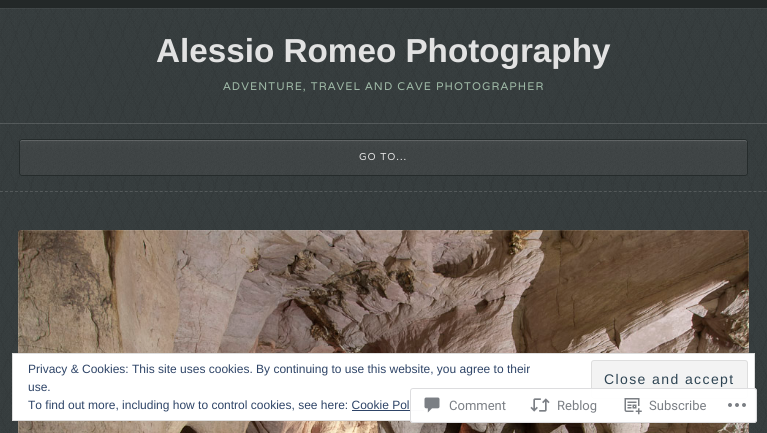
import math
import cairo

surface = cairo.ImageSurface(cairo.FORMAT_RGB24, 767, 433)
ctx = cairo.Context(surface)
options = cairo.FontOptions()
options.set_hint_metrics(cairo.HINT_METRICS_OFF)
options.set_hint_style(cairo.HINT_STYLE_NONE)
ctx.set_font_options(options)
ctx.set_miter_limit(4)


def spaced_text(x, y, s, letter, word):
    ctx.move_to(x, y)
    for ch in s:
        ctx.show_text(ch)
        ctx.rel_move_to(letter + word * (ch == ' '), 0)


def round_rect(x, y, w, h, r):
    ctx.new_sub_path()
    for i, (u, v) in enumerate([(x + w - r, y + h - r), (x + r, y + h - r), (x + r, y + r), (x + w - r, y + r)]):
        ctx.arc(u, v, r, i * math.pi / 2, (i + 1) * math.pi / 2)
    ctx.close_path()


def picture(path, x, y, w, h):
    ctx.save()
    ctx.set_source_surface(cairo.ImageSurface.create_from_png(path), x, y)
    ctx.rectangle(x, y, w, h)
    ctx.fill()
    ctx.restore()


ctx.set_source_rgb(0.137, 0.157, 0.157)
ctx.paint()
ctx.set_source_rgb(0.216, 0.243, 0.247)
ctx.rectangle(0, 8, 767, 425)
ctx.fill()
picture("img1.png", 0, 8, 767, 425)
ctx.set_source_rgba(1, 1, 1, 0.05)
ctx.rectangle(0, 8, 767, 1)
ctx.fill()
ctx.select_font_face("Liberation Sans", cairo.FONT_SLANT_NORMAL, cairo.FONT_WEIGHT_BOLD)
ctx.set_font_size(33.25)
ctx.set_source_rgb(0.886, 0.886, 0.886)
ctx.move_to(156, 62)
ctx.show_text("Alessio Romeo Photography")
ctx.select_font_face("Varela")
ctx.set_font_size(11.1)
ctx.set_source_rgb(0.627, 0.733, 0.659)
spaced_text(223, 90, "ADVENTURE, TRAVEL AND CAVE PHOTOGRAPHER", 1.1, 0)
ctx.set_source_rgba(1, 1, 1, 0.15)
ctx.rectangle(0, 123, 767, 1)
ctx.fill()
ctx.new_path()
ctx.move_to(0, 191.5)
ctx.line_to(767, 191.5)
ctx.set_line_width(1)
ctx.set_dash([3, 1.99])
ctx.stroke()
picture("img2.png", 19, 139, 729, 37)
ctx.new_path()
ctx.move_to(22, 141)
ctx.line_to(745, 141)
ctx.curve_to(746, 141, 747, 142, 747, 143)
ctx.curve_to(747, 142, 747, 140, 745, 140)
ctx.line_to(22, 140)
ctx.curve_to(20, 140, 20, 142, 20, 143)
ctx.curve_to(20, 142, 21, 141, 22, 141)
ctx.close_path()
ctx.fill()
round_rect(19.5, 139.5, 728, 36, 2.5)
ctx.set_source_rgb(0.145, 0.169, 0.169)
ctx.set_dash([])
ctx.stroke()
ctx.set_font_size(10)
ctx.set_source_rgb(0.886, 0.886, 0.886)
spaced_text(359, 160, "GO TO...", 1, 0)
picture("img3.png", 18, 230, 731, 3)
picture("img4.png", 18, 230, 731, 203)
ctx.new_path()
ctx.move_to(21, 230.5)
ctx.line_to(746, 230.5)
ctx.curve_to(747.5, 230.5, 748.5, 231.5, 748.5, 233)
ctx.line_to(748.5, 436.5)
ctx.line_to(18.5, 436.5)
ctx.line_to(18.5, 233)
ctx.curve_to(18.5, 231.5, 19.5, 230.5, 21, 230.5)
ctx.close_path()
ctx.set_source_rgba(1, 1, 1, 0.12)
ctx.stroke()
ctx.set_source_rgb(1, 1, 1)
ctx.rectangle(12.5, 353.5, 742, 67)
ctx.fill_preserve()
ctx.set_source_rgb(0.871, 0.871, 0.871)
ctx.stroke()
ctx.select_font_face("Liberation Sans")
ctx.set_font_size(12)
ctx.set_source_rgb(0.18, 0.267, 0.404)
ctx.move_to(28, 373)
ctx.show_text("Privacy & Cookies: This site uses cookies. By continuing to use this website, you agree to their")
ctx.set_source_rgb(0.953, 0.953, 0.953)
round_rect(591.5, 360.5, 156, 38, 2.5)
ctx.fill_preserve()
ctx.set_source_rgb(0.871, 0.871, 0.871)
ctx.stroke()
ctx.set_font_size(14)
ctx.set_source_rgb(0.18, 0.267, 0.325)
spaced_text(604, 384, "Close and accept", 1.4, 0)
ctx.set_font_size(12)
ctx.set_source_rgb(0.18, 0.267, 0.404)
ctx.move_to(28, 391)
ctx.show_text("use.")
ctx.move_to(28, 409)
ctx.show_text("To find out more, including how to control cookies, see here: Cookie Pol")
ctx.rectangle(352, 410, 72, 1)
ctx.fill()
ctx.set_source_rgba(1, 1, 1, 0.98)
round_rect(410, 388, 347, 35, 3)
ctx.fill()
round_rect(410.5, 388.5, 346, 34, 2.5)
ctx.set_source_rgba(0.863, 0.863, 0.871, 0.98)
ctx.stroke()
picture("img5.png", 424, 397, 16, 16)
ctx.select_font_face("Roboto")
ctx.set_font_size(13)
ctx.set_source_rgb(0.482, 0.498, 0.522)
ctx.move_to(449, 410)
ctx.show_text("Comment")
picture("img6.png", 530, 398, 20, 14)
ctx.move_to(557, 410)
ctx.show_text("Reblog")
picture("img7.png", 624, 398, 18, 17)
ctx.move_to(649, 410)
ctx.show_text("Subscribe")
picture("img8.png", 728, 403, 18, 4)
surface.write_to_png("page.png")
